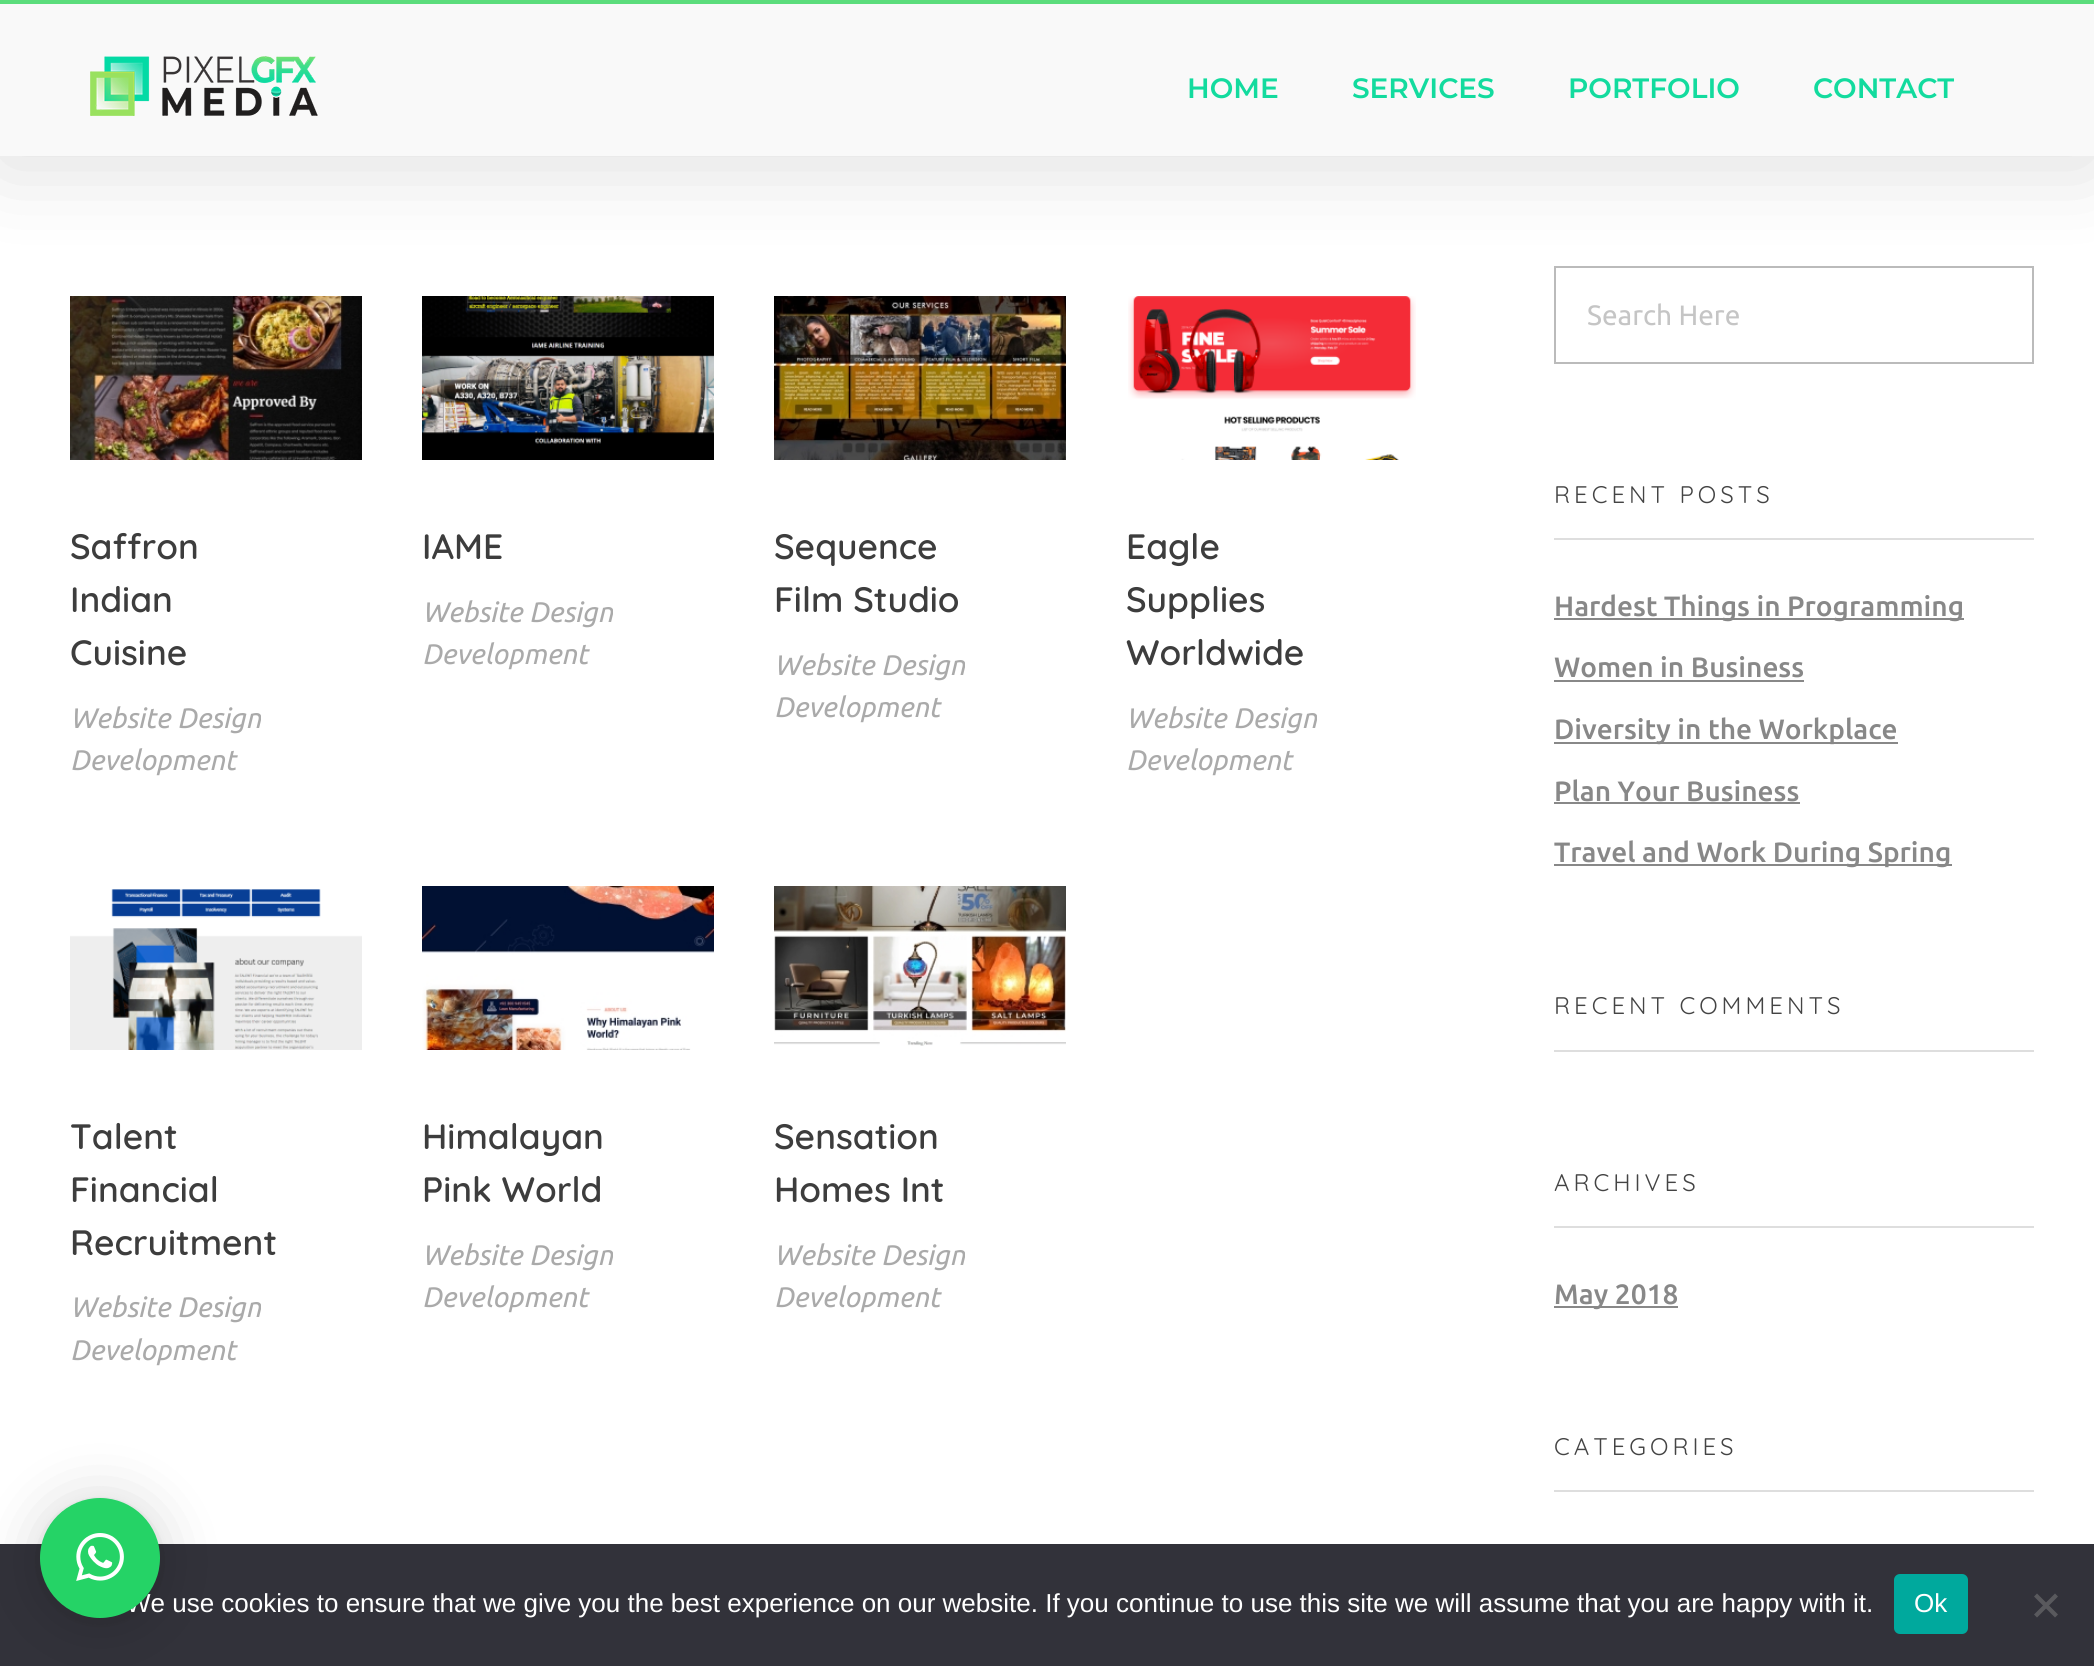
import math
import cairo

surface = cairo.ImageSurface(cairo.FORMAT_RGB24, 2094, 1666)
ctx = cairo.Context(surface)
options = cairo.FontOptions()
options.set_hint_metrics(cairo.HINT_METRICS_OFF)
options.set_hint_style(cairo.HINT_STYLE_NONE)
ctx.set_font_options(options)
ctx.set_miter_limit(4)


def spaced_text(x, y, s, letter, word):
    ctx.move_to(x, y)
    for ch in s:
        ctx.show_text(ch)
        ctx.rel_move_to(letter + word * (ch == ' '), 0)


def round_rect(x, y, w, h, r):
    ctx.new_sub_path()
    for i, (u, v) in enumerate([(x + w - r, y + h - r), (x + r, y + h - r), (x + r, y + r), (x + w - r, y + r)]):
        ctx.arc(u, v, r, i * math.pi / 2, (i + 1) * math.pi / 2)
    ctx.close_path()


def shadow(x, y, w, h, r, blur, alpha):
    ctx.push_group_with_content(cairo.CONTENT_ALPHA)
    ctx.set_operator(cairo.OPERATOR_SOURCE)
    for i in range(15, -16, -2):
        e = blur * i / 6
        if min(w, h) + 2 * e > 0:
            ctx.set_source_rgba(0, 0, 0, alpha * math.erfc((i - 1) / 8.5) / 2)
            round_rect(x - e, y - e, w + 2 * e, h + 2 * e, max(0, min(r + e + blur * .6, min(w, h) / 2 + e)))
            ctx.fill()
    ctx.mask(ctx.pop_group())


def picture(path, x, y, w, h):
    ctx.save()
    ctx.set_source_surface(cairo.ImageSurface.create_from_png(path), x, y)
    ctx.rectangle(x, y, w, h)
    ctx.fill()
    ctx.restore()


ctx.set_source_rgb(1, 1, 1)
ctx.paint()
picture("img2.png", 70, 296, 292, 164)
picture("img3.png", 422, 296, 292, 164)
picture("img4.png", 774, 296, 292, 164)
picture("img5.png", 1128, 296, 288, 164)
ctx.rectangle(1555, 267, 478, 96)
ctx.set_source_rgb(0.733, 0.733, 0.733)
ctx.stroke()
ctx.set_source_rgb(0, 0, 0)
shadow(0, 8, 2094, 156, 0, 44, 0.14)
ctx.set_source_rgb(0.976, 0.976, 0.976)
ctx.rectangle(0, 4, 2094, 152)
ctx.fill()
ctx.set_source_rgb(0.361, 0.867, 0.486)
ctx.rectangle(0, 0, 2094, 4)
ctx.fill()
picture("img1.png", 90, 56, 228, 60)
ctx.select_font_face("Montserrat SemiBold")
ctx.set_font_size(28)
ctx.set_source_rgb(0.075, 0.859, 0.62)
ctx.move_to(1187, 98)
ctx.show_text("HOME")
ctx.move_to(1352, 98)
ctx.show_text("SERVICES")
ctx.move_to(1568, 98)
ctx.show_text("PORTFOLIO")
ctx.move_to(1813, 98)
ctx.show_text("CONTACT")
ctx.select_font_face("Quicksand SemiBold")
ctx.set_font_size(35.25)
ctx.set_source_rgb(0.239, 0.239, 0.239)
ctx.move_to(70, 559)
ctx.show_text("Saffron")
ctx.move_to(70, 612)
ctx.show_text("Indian")
ctx.move_to(70, 665)
ctx.show_text("Cuisine")
ctx.select_font_face("Ubuntu", cairo.FONT_SLANT_ITALIC)
ctx.set_font_size(28.25)
ctx.set_source_rgb(0.667, 0.667, 0.667)
ctx.move_to(70, 728)
ctx.show_text("Website Design")
ctx.move_to(70, 770)
ctx.show_text("Development")
ctx.select_font_face("Quicksand SemiBold")
ctx.set_font_size(35.25)
ctx.set_source_rgb(0.239, 0.239, 0.239)
ctx.move_to(422, 559)
ctx.show_text("IAME")
ctx.select_font_face("Ubuntu", cairo.FONT_SLANT_ITALIC)
ctx.set_font_size(28.25)
ctx.set_source_rgb(0.667, 0.667, 0.667)
ctx.move_to(422, 622)
ctx.show_text("Website Design")
ctx.move_to(422, 664)
ctx.show_text("Development")
ctx.select_font_face("Quicksand SemiBold")
ctx.set_font_size(35.25)
ctx.set_source_rgb(0.239, 0.239, 0.239)
ctx.move_to(774, 559)
ctx.show_text("Sequence")
ctx.move_to(774, 612)
ctx.show_text("Film Studio")
ctx.select_font_face("Ubuntu", cairo.FONT_SLANT_ITALIC)
ctx.set_font_size(28.25)
ctx.set_source_rgb(0.667, 0.667, 0.667)
ctx.move_to(774, 675)
ctx.show_text("Website Design")
ctx.move_to(774, 717)
ctx.show_text("Development")
ctx.select_font_face("Quicksand SemiBold")
ctx.set_font_size(35.25)
ctx.set_source_rgb(0.239, 0.239, 0.239)
ctx.move_to(1126, 559)
ctx.show_text("Eagle")
ctx.move_to(1126, 612)
ctx.show_text("Supplies")
ctx.move_to(1126, 665)
ctx.show_text("Worldwide")
ctx.select_font_face("Ubuntu", cairo.FONT_SLANT_ITALIC)
ctx.set_font_size(28.25)
ctx.set_source_rgb(0.667, 0.667, 0.667)
ctx.move_to(1126, 728)
ctx.show_text("Website Design")
ctx.move_to(1126, 770)
ctx.show_text("Development")
picture("img6.png", 70, 889, 292, 161)
ctx.select_font_face("Quicksand SemiBold")
ctx.set_font_size(35.25)
ctx.set_source_rgb(0.239, 0.239, 0.239)
ctx.move_to(70, 1149)
ctx.show_text("Talent")
ctx.move_to(70, 1202)
ctx.show_text("Financial")
ctx.move_to(70, 1255)
ctx.show_text("Recruitment")
ctx.select_font_face("Ubuntu", cairo.FONT_SLANT_ITALIC)
ctx.set_font_size(28.25)
ctx.set_source_rgb(0.667, 0.667, 0.667)
ctx.move_to(70, 1317)
ctx.show_text("Website Design")
ctx.move_to(70, 1360)
ctx.show_text("Development")
picture("img7.png", 422, 886, 292, 164)
ctx.select_font_face("Quicksand SemiBold")
ctx.set_font_size(35.25)
ctx.set_source_rgb(0.239, 0.239, 0.239)
ctx.move_to(422, 1149)
ctx.show_text("Himalayan")
ctx.move_to(422, 1202)
ctx.show_text("Pink World")
ctx.select_font_face("Ubuntu", cairo.FONT_SLANT_ITALIC)
ctx.set_font_size(28.25)
ctx.set_source_rgb(0.667, 0.667, 0.667)
ctx.move_to(422, 1265)
ctx.show_text("Website Design")
ctx.move_to(422, 1307)
ctx.show_text("Development")
picture("img8.png", 774, 886, 292, 160)
ctx.select_font_face("Quicksand SemiBold")
ctx.set_font_size(35.25)
ctx.set_source_rgb(0.239, 0.239, 0.239)
ctx.move_to(774, 1149)
ctx.show_text("Sensation")
ctx.move_to(774, 1202)
ctx.show_text("Homes Int")
ctx.select_font_face("Ubuntu", cairo.FONT_SLANT_ITALIC)
ctx.set_font_size(28.25)
ctx.set_source_rgb(0.667, 0.667, 0.667)
ctx.move_to(774, 1265)
ctx.show_text("Website Design")
ctx.move_to(774, 1307)
ctx.show_text("Development")
ctx.select_font_face("Ubuntu")
ctx.set_font_size(28)
ctx.set_source_rgb(0.773, 0.773, 0.773)
ctx.move_to(1587, 325)
ctx.show_text("Search Here")
ctx.set_source_rgb(0.871, 0.871, 0.871)
ctx.rectangle(1554, 538, 480, 2)
ctx.fill()
ctx.select_font_face("Quicksand")
ctx.set_font_size(24)
ctx.set_source_rgb(0.267, 0.267, 0.267)
spaced_text(1554, 503, "RECENT POSTS", 4, 0)
ctx.set_source_rgb(0.533, 0.533, 0.533)
ctx.rectangle(1554, 618, 410, 2)
ctx.fill()
ctx.select_font_face("Ubuntu Medium")
ctx.set_font_size(28)
ctx.move_to(1554, 616)
ctx.show_text("Hardest Things in Programming")
ctx.move_to(1554, 677)
ctx.show_text("Women in Business")
ctx.rectangle(1554, 680, 250, 2)
ctx.fill()
ctx.rectangle(1554, 742, 344, 2)
ctx.fill()
ctx.move_to(1554, 739)
ctx.show_text("Diversity in the Workplace")
ctx.move_to(1554, 801)
ctx.show_text("Plan Your Business")
ctx.rectangle(1554, 802, 246, 2)
ctx.fill()
ctx.rectangle(1554, 864, 398, 2)
ctx.fill()
ctx.move_to(1554, 862)
ctx.show_text("Travel and Work During Spring")
ctx.set_source_rgb(0.871, 0.871, 0.871)
ctx.rectangle(1554, 1050, 480, 2)
ctx.fill()
ctx.select_font_face("Quicksand")
ctx.set_font_size(24)
ctx.set_source_rgb(0.267, 0.267, 0.267)
spaced_text(1554, 1014, "RECENT COMMENTS", 4, 0)
ctx.set_source_rgb(0.871, 0.871, 0.871)
ctx.rectangle(1554, 1226, 480, 2)
ctx.fill()
ctx.set_source_rgb(0.267, 0.267, 0.267)
spaced_text(1554, 1191, "ARCHIVES", 4, 0)
ctx.set_source_rgb(0.533, 0.533, 0.533)
ctx.rectangle(1554, 1306, 124, 2)
ctx.fill()
ctx.select_font_face("Ubuntu Medium")
ctx.set_font_size(28)
ctx.move_to(1554, 1304)
ctx.show_text("May 2018")
ctx.set_source_rgb(0.871, 0.871, 0.871)
ctx.rectangle(1554, 1490, 480, 2)
ctx.fill()
ctx.select_font_face("Quicksand")
ctx.set_font_size(24)
ctx.set_source_rgb(0.267, 0.267, 0.267)
spaced_text(1554, 1455, "CATEGORIES", 4, 0)
ctx.set_source_rgb(0.196, 0.196, 0.227)
ctx.rectangle(0, 1544, 2094, 122)
ctx.fill()
ctx.set_source_rgb(0, 0, 0)
shadow(40, 1502, 120, 120, 60, 32, 0.16)
shadow(40, 1500, 120, 120, 60, 6, 0.06)
ctx.select_font_face("Liberation Sans")
ctx.set_font_size(26)
ctx.set_source_rgb(1, 1, 1)
ctx.move_to(126, 1612)
ctx.show_text("We use cookies to ensure that we give you the best experience on our website. If you continue to use this site we will assume that you are happy with it.")
ctx.set_source_rgb(0.145, 0.827, 0.4)
ctx.new_path()
ctx.arc(100, 1558, 60, 0, 2 * math.pi)
ctx.fill()
picture("img9.png", 76, 1533, 48, 48)
ctx.set_source_rgb(0, 0.663, 0.616)
round_rect(1894, 1574, 74, 60, 6)
ctx.fill()
ctx.set_source_rgb(1, 1, 1)
ctx.move_to(1914, 1612)
ctx.show_text("Ok")
ctx.set_source_rgb(0.349, 0.349, 0.365)
ctx.new_path()
ctx.move_to(2055, 1593.5)
ctx.line_to(2058, 1596.5)
ctx.line_to(2037, 1617.5)
ctx.line_to(2034, 1614.5)
ctx.close_path()
ctx.fill()
ctx.new_path()
ctx.move_to(2034, 1596.5)
ctx.line_to(2037, 1593.5)
ctx.line_to(2058, 1614.5)
ctx.line_to(2055, 1617.5)
ctx.close_path()
ctx.fill()
surface.write_to_png("page.png")
